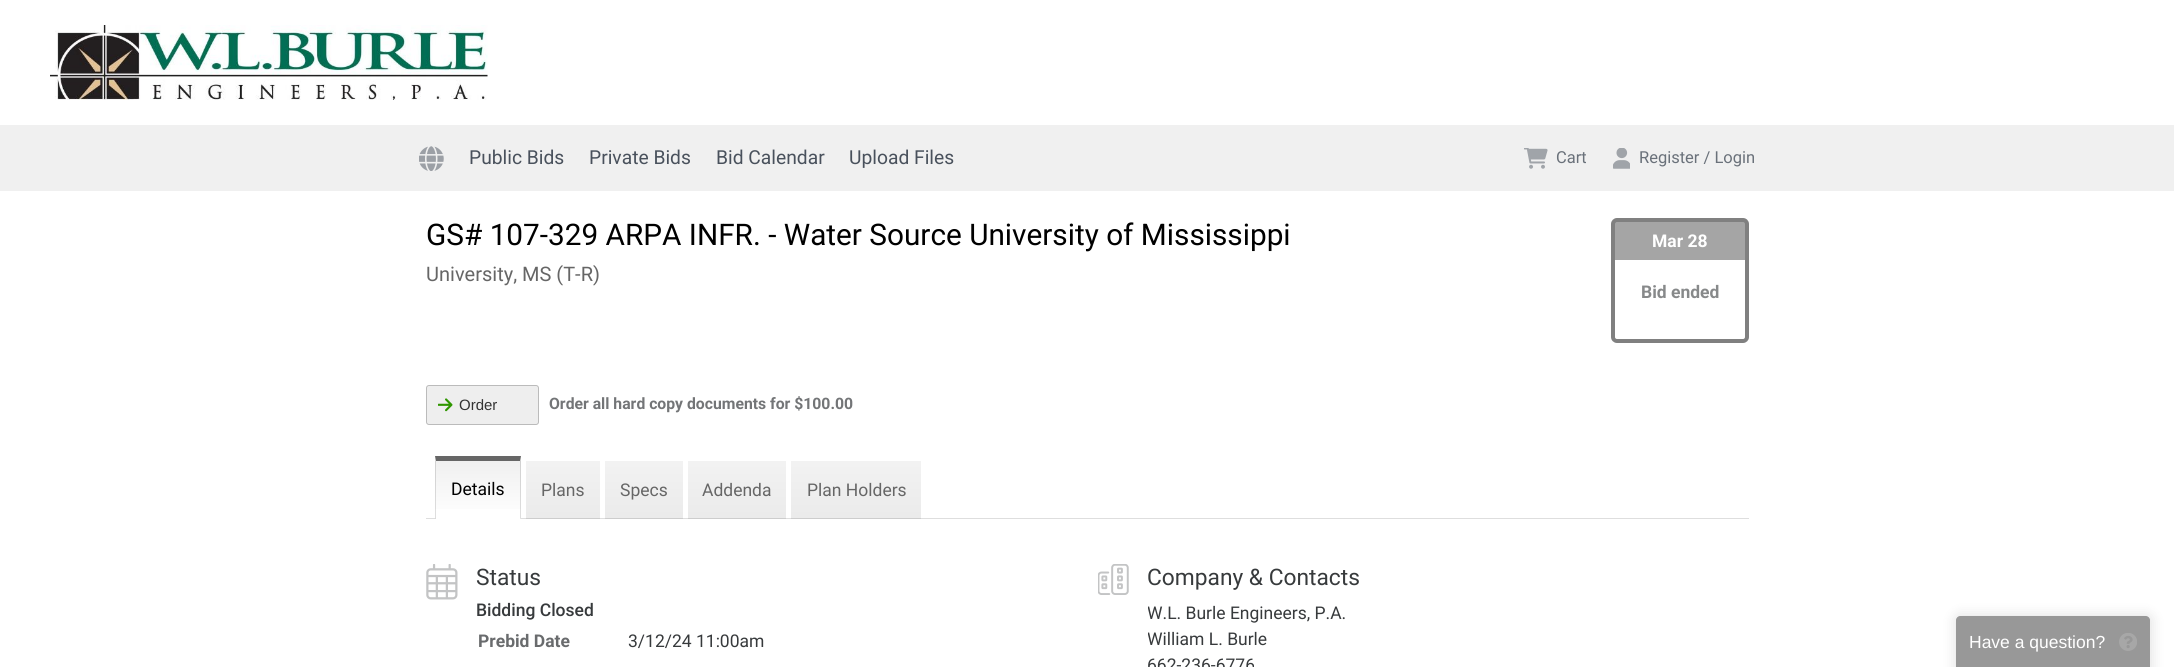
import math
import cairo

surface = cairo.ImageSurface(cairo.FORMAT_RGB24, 2174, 667)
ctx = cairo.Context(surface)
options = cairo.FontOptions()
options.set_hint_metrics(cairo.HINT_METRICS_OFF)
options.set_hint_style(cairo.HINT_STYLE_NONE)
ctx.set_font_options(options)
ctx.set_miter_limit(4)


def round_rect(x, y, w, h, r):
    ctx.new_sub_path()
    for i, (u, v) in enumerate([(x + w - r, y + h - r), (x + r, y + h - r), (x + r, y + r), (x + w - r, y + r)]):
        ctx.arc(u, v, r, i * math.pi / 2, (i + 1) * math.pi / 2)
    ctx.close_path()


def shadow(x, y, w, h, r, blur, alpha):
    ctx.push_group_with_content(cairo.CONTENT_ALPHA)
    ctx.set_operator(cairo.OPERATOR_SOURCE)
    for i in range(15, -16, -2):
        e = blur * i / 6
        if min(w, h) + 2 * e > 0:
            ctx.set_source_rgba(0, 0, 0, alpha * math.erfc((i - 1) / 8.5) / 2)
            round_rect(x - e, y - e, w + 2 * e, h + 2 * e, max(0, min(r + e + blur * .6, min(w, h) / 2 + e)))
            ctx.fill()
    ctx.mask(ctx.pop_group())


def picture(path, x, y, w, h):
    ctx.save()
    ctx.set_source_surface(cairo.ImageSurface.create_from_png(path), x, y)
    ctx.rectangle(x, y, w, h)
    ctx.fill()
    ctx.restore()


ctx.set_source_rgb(1, 1, 1)
ctx.paint()
picture("img1.png", 50, 25, 438, 75)
ctx.set_source_rgb(0.941, 0.941, 0.941)
ctx.rectangle(0, 125, 2174, 66)
ctx.fill()
picture("img2.png", 419, 146, 25, 25)
ctx.select_font_face("Roboto")
ctx.set_font_size(19.25)
ctx.set_source_rgb(0.286, 0.318, 0.361)
ctx.move_to(469, 164)
ctx.show_text("Public Bids")
ctx.move_to(589, 164)
ctx.show_text("Private Bids")
ctx.move_to(716, 164)
ctx.show_text("Bid Calendar")
ctx.move_to(849, 164)
ctx.show_text("Upload Files")
picture("img3.png", 1524, 148, 24, 21)
ctx.set_font_size(16.5)
ctx.set_source_rgb(0.416, 0.443, 0.478)
ctx.move_to(1556, 163)
ctx.show_text("Cart")
picture("img4.png", 1613, 148, 17, 21)
ctx.move_to(1639, 163)
ctx.show_text("Register / Login")
ctx.set_font_size(29.75)
ctx.set_source_rgb(0, 0, 0)
ctx.move_to(426, 245)
ctx.show_text("GS# 107-329 ARPA INFR. - Water Source University of Mississippi")
round_rect(1613, 220, 134, 121, 4)
ctx.set_source_rgb(0.502, 0.502, 0.502)
ctx.set_line_width(4)
ctx.stroke()
ctx.set_source_rgba(0.502, 0.502, 0.502, 0.7)
ctx.rectangle(1615, 222, 130, 38)
ctx.fill()
ctx.select_font_face("Roboto", cairo.FONT_SLANT_NORMAL, cairo.FONT_WEIGHT_BOLD)
ctx.set_font_size(17.5)
ctx.set_source_rgb(1, 1, 1)
ctx.move_to(1652, 247)
ctx.show_text("Mar 28")
ctx.set_source_rgb(0.529, 0.537, 0.541)
ctx.move_to(1641, 298)
ctx.show_text("Bid ended")
ctx.select_font_face("Roboto")
ctx.set_font_size(20)
ctx.set_source_rgb(0.4, 0.4, 0.4)
ctx.move_to(426, 281)
ctx.show_text("University, MS (T-R)")
ctx.set_source_rgb(0.933, 0.933, 0.933)
round_rect(426.5, 385.5, 112, 39, 2.5)
ctx.fill_preserve()
ctx.set_source_rgb(0.733, 0.733, 0.733)
ctx.set_line_width(1)
ctx.stroke()
picture("img5.png", 438, 398, 15, 14)
ctx.select_font_face("Liberation Sans")
ctx.set_font_size(15)
ctx.set_source_rgb(0.2, 0.2, 0.2)
ctx.move_to(459, 410)
ctx.show_text("Order")
ctx.select_font_face("Roboto", cairo.FONT_SLANT_NORMAL, cairo.FONT_WEIGHT_BOLD)
ctx.set_font_size(15.75)
ctx.set_source_rgb(0.451, 0.459, 0.467)
ctx.move_to(549, 409)
ctx.show_text("Order all hard copy documents for $100.00")
ctx.set_source_rgb(0.871, 0.871, 0.871)
ctx.rectangle(426, 518, 1323, 1)
ctx.fill()
gradient = cairo.LinearGradient(478, 461, 478, 518)
gradient.add_color_stop_rgba(0, 0.941, 0.941, 0.941, 1)
gradient.add_color_stop_rgba(1, 1, 1, 1, 1)
ctx.set_source(gradient)
ctx.rectangle(435, 461, 86, 48)
ctx.fill()
gradient = cairo.LinearGradient(478, 518, 478, 574)
gradient.add_color_stop_rgba(0, 0.82, 0.82, 0.82, 1)
gradient.add_color_stop_rgba(1, 0.871, 0.871, 0.871, 1)
ctx.set_source(gradient)
ctx.rectangle(435, 518, 86, 1)
ctx.fill()
ctx.set_source_rgb(0.4, 0.4, 0.4)
ctx.new_path()
ctx.move_to(435, 456)
ctx.line_to(521, 456)
ctx.line_to(520, 461)
ctx.line_to(436, 461)
ctx.close_path()
ctx.fill()
ctx.set_source_rgba(0, 0, 0, 0.13)
ctx.new_path()
ctx.move_to(521, 456)
ctx.line_to(521, 519)
ctx.line_to(520, 518)
ctx.line_to(520, 461)
ctx.close_path()
ctx.fill()
ctx.set_source_rgb(1, 1, 1)
ctx.new_path()
ctx.move_to(521, 519)
ctx.line_to(435, 519)
ctx.line_to(436, 518)
ctx.line_to(520, 518)
ctx.close_path()
ctx.fill()
ctx.set_source_rgba(0, 0, 0, 0.13)
ctx.new_path()
ctx.move_to(435, 519)
ctx.line_to(435, 456)
ctx.line_to(436, 461)
ctx.line_to(436, 518)
ctx.close_path()
ctx.fill()
ctx.select_font_face("Roboto")
ctx.set_font_size(17.5)
ctx.set_source_rgb(0, 0, 0)
ctx.move_to(451, 495)
ctx.show_text("Details")
gradient = cairo.LinearGradient(563, 461, 563, 519)
gradient.add_color_stop_rgba(0, 0, 0, 0, 0.05)
gradient.add_color_stop_rgba(1, 0, 0, 0, 0.08)
ctx.set_source(gradient)
ctx.rectangle(526, 461, 74, 58)
ctx.fill()
ctx.set_source_rgb(0.4, 0.4, 0.4)
ctx.move_to(541, 496)
ctx.show_text("Plans")
gradient = cairo.LinearGradient(644, 461, 644, 519)
gradient.add_color_stop_rgba(0, 0, 0, 0, 0.05)
gradient.add_color_stop_rgba(1, 0, 0, 0, 0.08)
ctx.set_source(gradient)
ctx.rectangle(605, 461, 78, 58)
ctx.fill()
ctx.set_source_rgb(0.4, 0.4, 0.4)
ctx.move_to(620, 496)
ctx.show_text("Specs")
gradient = cairo.LinearGradient(737, 461, 737, 519)
gradient.add_color_stop_rgba(0, 0, 0, 0, 0.05)
gradient.add_color_stop_rgba(1, 0, 0, 0, 0.08)
ctx.set_source(gradient)
ctx.rectangle(688, 461, 98, 58)
ctx.fill()
ctx.set_source_rgb(0.4, 0.4, 0.4)
ctx.move_to(702, 496)
ctx.show_text("Addenda")
gradient = cairo.LinearGradient(856, 461, 856, 519)
gradient.add_color_stop_rgba(0, 0, 0, 0, 0.05)
gradient.add_color_stop_rgba(1, 0, 0, 0, 0.08)
ctx.set_source(gradient)
ctx.rectangle(791, 461, 130, 58)
ctx.fill()
ctx.set_source_rgb(0.4, 0.4, 0.4)
ctx.move_to(807, 496)
ctx.show_text("Plan Holders")
picture("img6.png", 426, 564, 32, 36)
ctx.set_font_size(22.75)
ctx.set_source_rgb(0.216, 0.227, 0.235)
ctx.move_to(476, 585)
ctx.show_text("Status")
ctx.select_font_face("Roboto Medium")
ctx.set_font_size(17.5)
ctx.move_to(476, 616)
ctx.show_text("Bidding Closed")
ctx.select_font_face("Roboto", cairo.FONT_SLANT_NORMAL, cairo.FONT_WEIGHT_BOLD)
ctx.set_source_rgb(0.412, 0.42, 0.427)
ctx.move_to(478, 647)
ctx.show_text("Prebid Date")
ctx.select_font_face("Roboto")
ctx.set_source_rgb(0.216, 0.227, 0.235)
ctx.move_to(628, 647)
ctx.show_text("3/12/24 11:00am")
picture("img7.png", 1098, 564, 31, 31)
ctx.set_font_size(22.75)
ctx.move_to(1147, 585)
ctx.show_text("Company & Contacts")
ctx.save()
ctx.rectangle(1148, 564, 601, 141)
ctx.clip()
ctx.set_font_size(17.5)
ctx.move_to(1147, 619)
ctx.show_text("W.L. Burle Engineers, P.A.")
ctx.move_to(1147, 645)
ctx.show_text("William L. Burle")
ctx.restore()
ctx.set_font_size(17.5)
ctx.move_to(1147, 671)
ctx.show_text("662-236-6776")
ctx.save()
ctx.set_fill_rule(cairo.FILL_RULE_EVEN_ODD)
ctx.new_path()
ctx.move_to(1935, 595)
ctx.line_to(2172, 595)
ctx.line_to(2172, 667)
ctx.line_to(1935, 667)
ctx.close_path()
ctx.move_to(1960, 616)
ctx.line_to(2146, 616)
ctx.curve_to(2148, 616, 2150, 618, 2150, 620)
ctx.line_to(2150, 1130)
ctx.line_to(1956, 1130)
ctx.line_to(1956, 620)
ctx.curve_to(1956, 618, 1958, 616, 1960, 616)
ctx.close_path()
ctx.clip()
ctx.set_source_rgb(0, 0, 0)
shadow(1954, 614, 199, 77, 6, 6, 0.1)
ctx.restore()
ctx.set_source_rgba(0.2, 0.2, 0.2, 0.5)
ctx.new_path()
ctx.move_to(1960, 616)
ctx.line_to(2146, 616)
ctx.curve_to(2148, 616, 2150, 618, 2150, 620)
ctx.line_to(2150, 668)
ctx.line_to(1956, 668)
ctx.line_to(1956, 620)
ctx.curve_to(1956, 618, 1958, 616, 1960, 616)
ctx.close_path()
ctx.fill()
ctx.select_font_face("Liberation Sans")
ctx.set_source_rgb(1, 1, 1)
ctx.move_to(1969, 648)
ctx.show_text("Have a question?")
picture("img8.png", 2119, 633, 18, 18)
surface.write_to_png("page.png")
